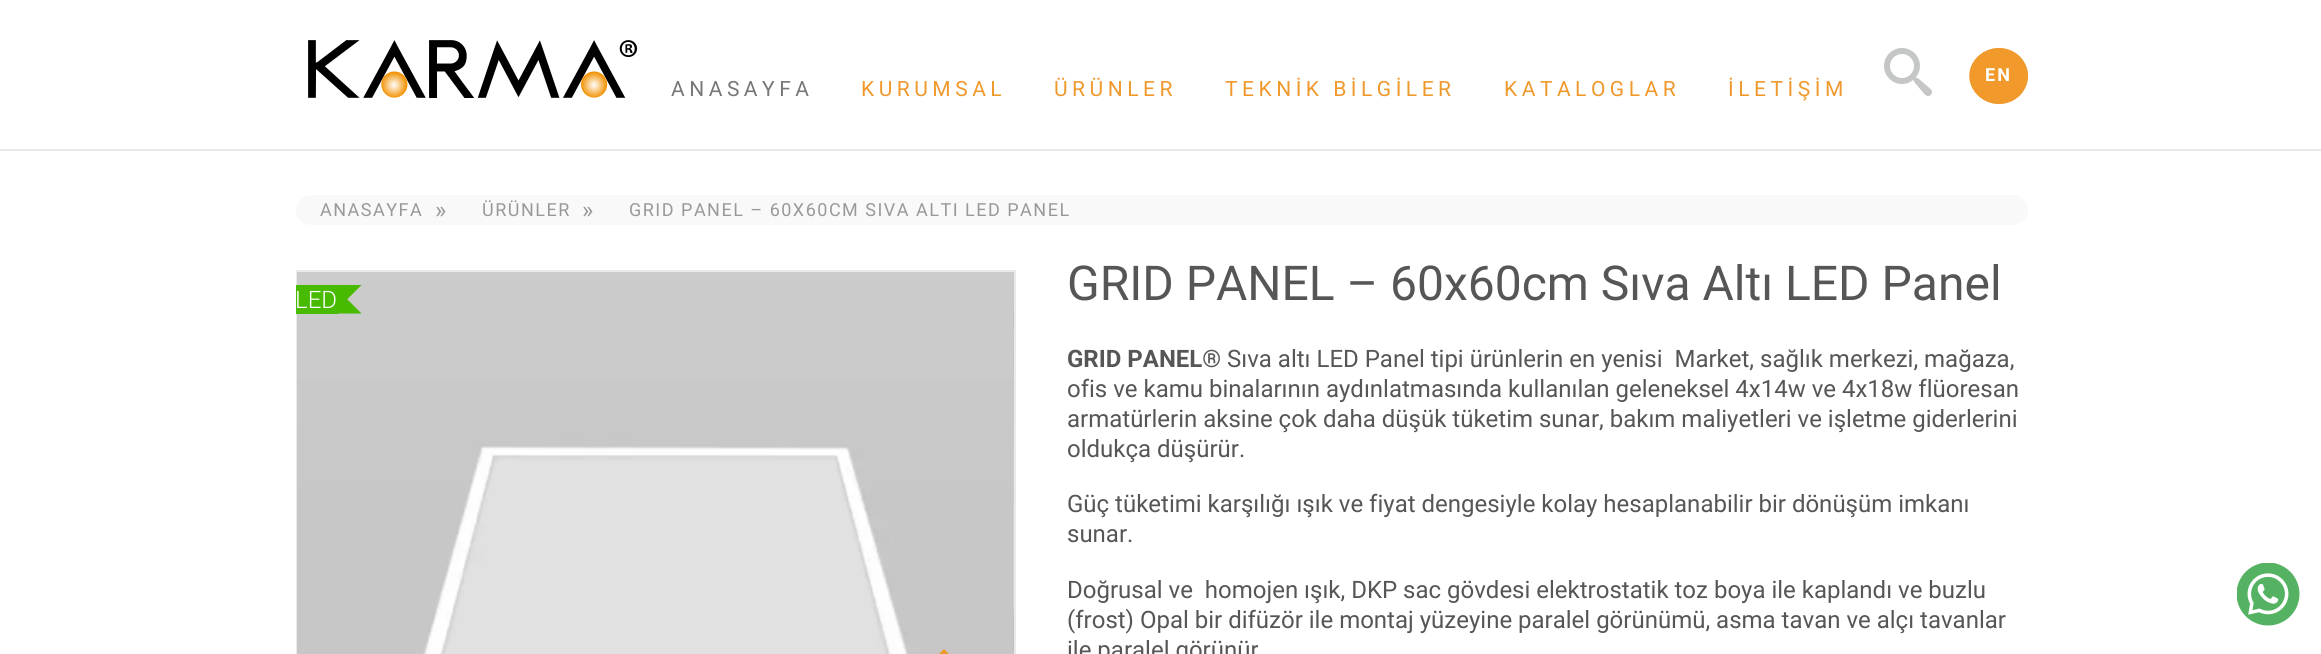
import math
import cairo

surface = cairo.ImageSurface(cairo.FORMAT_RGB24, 2321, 654)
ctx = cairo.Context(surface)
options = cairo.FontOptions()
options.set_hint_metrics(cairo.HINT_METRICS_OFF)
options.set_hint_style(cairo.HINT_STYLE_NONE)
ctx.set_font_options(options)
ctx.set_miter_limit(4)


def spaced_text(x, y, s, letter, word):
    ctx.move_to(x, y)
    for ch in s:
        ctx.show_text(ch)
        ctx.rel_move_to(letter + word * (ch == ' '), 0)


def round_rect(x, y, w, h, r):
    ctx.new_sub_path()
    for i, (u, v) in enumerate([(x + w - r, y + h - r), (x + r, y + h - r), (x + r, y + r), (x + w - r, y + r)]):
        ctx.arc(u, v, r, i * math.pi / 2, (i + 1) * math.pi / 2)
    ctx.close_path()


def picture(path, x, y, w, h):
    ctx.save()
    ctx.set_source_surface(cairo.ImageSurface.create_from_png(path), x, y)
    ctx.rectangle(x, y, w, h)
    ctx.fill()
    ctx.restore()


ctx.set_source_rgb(1, 1, 1)
ctx.paint()
ctx.set_source_rgb(0.914, 0.918, 0.918)
ctx.rectangle(0, 149, 2321, 2)
ctx.fill()
picture("img1.png", 308, 40, 330, 58)
picture("img2.png", 1884, 48, 48, 48)
ctx.set_source_rgb(0.945, 0.604, 0.169)
ctx.new_path()
ctx.move_to(1999, 48)
ctx.curve_to(2015, 48, 2028, 60.5, 2028, 76)
ctx.curve_to(2028, 91.5, 2015, 104, 1999, 104)
ctx.curve_to(1983, 104, 1970, 91.5, 1970, 76)
ctx.curve_to(1970, 60.5, 1983, 48, 1999, 48)
ctx.close_path()
ctx.fill()
ctx.new_path()
ctx.move_to(1999, 49)
ctx.curve_to(2014.5, 49, 2027, 61, 2027, 76)
ctx.curve_to(2027, 90.5, 2014.5, 103, 1999, 103)
ctx.curve_to(1983, 103, 1970, 90.5, 1970, 76)
ctx.curve_to(1970, 61, 1983, 49, 1999, 49)
ctx.close_path()
ctx.set_source_rgb(0.937, 0.6, 0.176)
ctx.set_line_width(1.5)
ctx.stroke()
ctx.select_font_face("Roboto", cairo.FONT_SLANT_NORMAL, cairo.FONT_WEIGHT_BOLD)
ctx.set_font_size(18)
ctx.set_source_rgb(1, 1, 1)
spaced_text(1985, 81, "EN", 2, 0)
ctx.select_font_face("Roboto")
ctx.set_font_size(21)
ctx.set_source_rgb(0.467, 0.467, 0.467)
spaced_text(671, 96, "ANASAYFA", 4.5, 0)
ctx.set_source_rgb(0.937, 0.6, 0.176)
spaced_text(861, 96, "KURUMSAL", 4.5, 0)
spaced_text(1054, 96, "ÜRÜNLER", 4.5, 0)
spaced_text(1225, 96, "TEKNİK BİLGİLER", 4.5, 0)
spaced_text(1504, 96, "KATALOGLAR", 4.5, 0)
spaced_text(1728, 96, "İLETİŞİM", 4.5, 0)
ctx.set_source_rgb(0.976, 0.976, 0.976)
round_rect(296, 195, 1732, 30, 15)
ctx.fill()
ctx.set_font_size(18)
ctx.set_source_rgb(0.6, 0.6, 0.6)
spaced_text(320, 216, "ANASAYFA", 1.5, 0)
ctx.set_font_size(24)
ctx.move_to(435, 218)
ctx.show_text("»")
ctx.set_font_size(18)
spaced_text(482, 216, "ÜRÜNLER", 1.5, 0)
ctx.set_font_size(24)
ctx.move_to(582, 218)
ctx.show_text("»")
ctx.set_font_size(18)
spaced_text(629, 216, "GRID PANEL – 60X60CM SIVA ALTI LED PANEL", 1.5, 0)
ctx.rectangle(297, 271, 718, 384)
ctx.set_source_rgb(0.914, 0.918, 0.918)
ctx.set_line_width(2)
ctx.stroke()
picture("img3.png", 297, 272, 717, 382)
picture("img4.png", 1013, 272, 1, 382)
ctx.set_source_rgb(0.937, 0.6, 0.176)
ctx.new_path()
ctx.move_to(937, 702)
ctx.line_to(960, 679)
ctx.line_to(937, 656)
ctx.line_to(944, 649)
ctx.line_to(974, 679)
ctx.line_to(944, 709)
ctx.close_path()
ctx.fill()
ctx.set_source_rgb(0.282, 0.729, 0)
ctx.rectangle(296, 285, 42, 29)
ctx.fill()
ctx.new_path()
ctx.move_to(337.5, 285)
ctx.line_to(361.5, 285)
ctx.line_to(337.5, 309)
ctx.close_path()
ctx.fill()
ctx.select_font_face("Roboto Light")
ctx.set_font_size(24)
ctx.set_source_rgb(1, 1, 1)
ctx.move_to(295, 308)
ctx.show_text("LED")
ctx.set_source_rgb(0.282, 0.729, 0)
ctx.new_path()
ctx.move_to(337.5, 313.5)
ctx.line_to(337.5, 289.5)
ctx.line_to(361.5, 313.5)
ctx.close_path()
ctx.fill()
ctx.select_font_face("Roboto")
ctx.set_font_size(48)
ctx.set_source_rgb(0.337, 0.337, 0.337)
ctx.move_to(1067, 300)
ctx.show_text("GRID PANEL – 60x60cm Sıva Altı LED Panel")
ctx.select_font_face("Roboto", cairo.FONT_SLANT_NORMAL, cairo.FONT_WEIGHT_BOLD)
ctx.set_font_size(24)
ctx.move_to(1067, 367)
ctx.show_text("GRID PANEL®")
ctx.select_font_face("Roboto")
ctx.move_to(1227, 367)
ctx.show_text("Sıva altı LED Panel tipi ürünlerin en yenisi  Market, sağlık merkezi, mağaza,")
ctx.move_to(1067, 397)
ctx.show_text("ofis ve kamu binalarının aydınlatmasında kullanılan geleneksel 4x14w ve 4x18w flüoresan")
ctx.move_to(1067, 427)
ctx.show_text("armatürlerin aksine çok daha düşük tüketim sunar, bakım maliyetleri ve işletme giderlerini")
ctx.move_to(1067, 457)
ctx.show_text("oldukça düşürür.")
ctx.move_to(1067, 512)
ctx.show_text("Güç tüketimi karşılığı ışık ve fiyat dengesiyle kolay hesaplanabilir bir dönüşüm imkanı")
ctx.move_to(1067, 542)
ctx.show_text("sunar.")
ctx.move_to(1067, 598)
ctx.show_text("Doğrusal ve  homojen ışık, DKP sac gövdesi elektrostatik toz boya ile kaplandı ve buzlu")
ctx.move_to(1067, 628)
ctx.show_text("(frost) Opal bir difüzör ile montaj yüzeyine paralel görünümü, asma tavan ve alçı tavanlar")
ctx.move_to(1067, 658)
ctx.show_text("ile paralel görünür")
picture("img5.png", 2237, 563, 63, 63)
surface.write_to_png("page.png")
